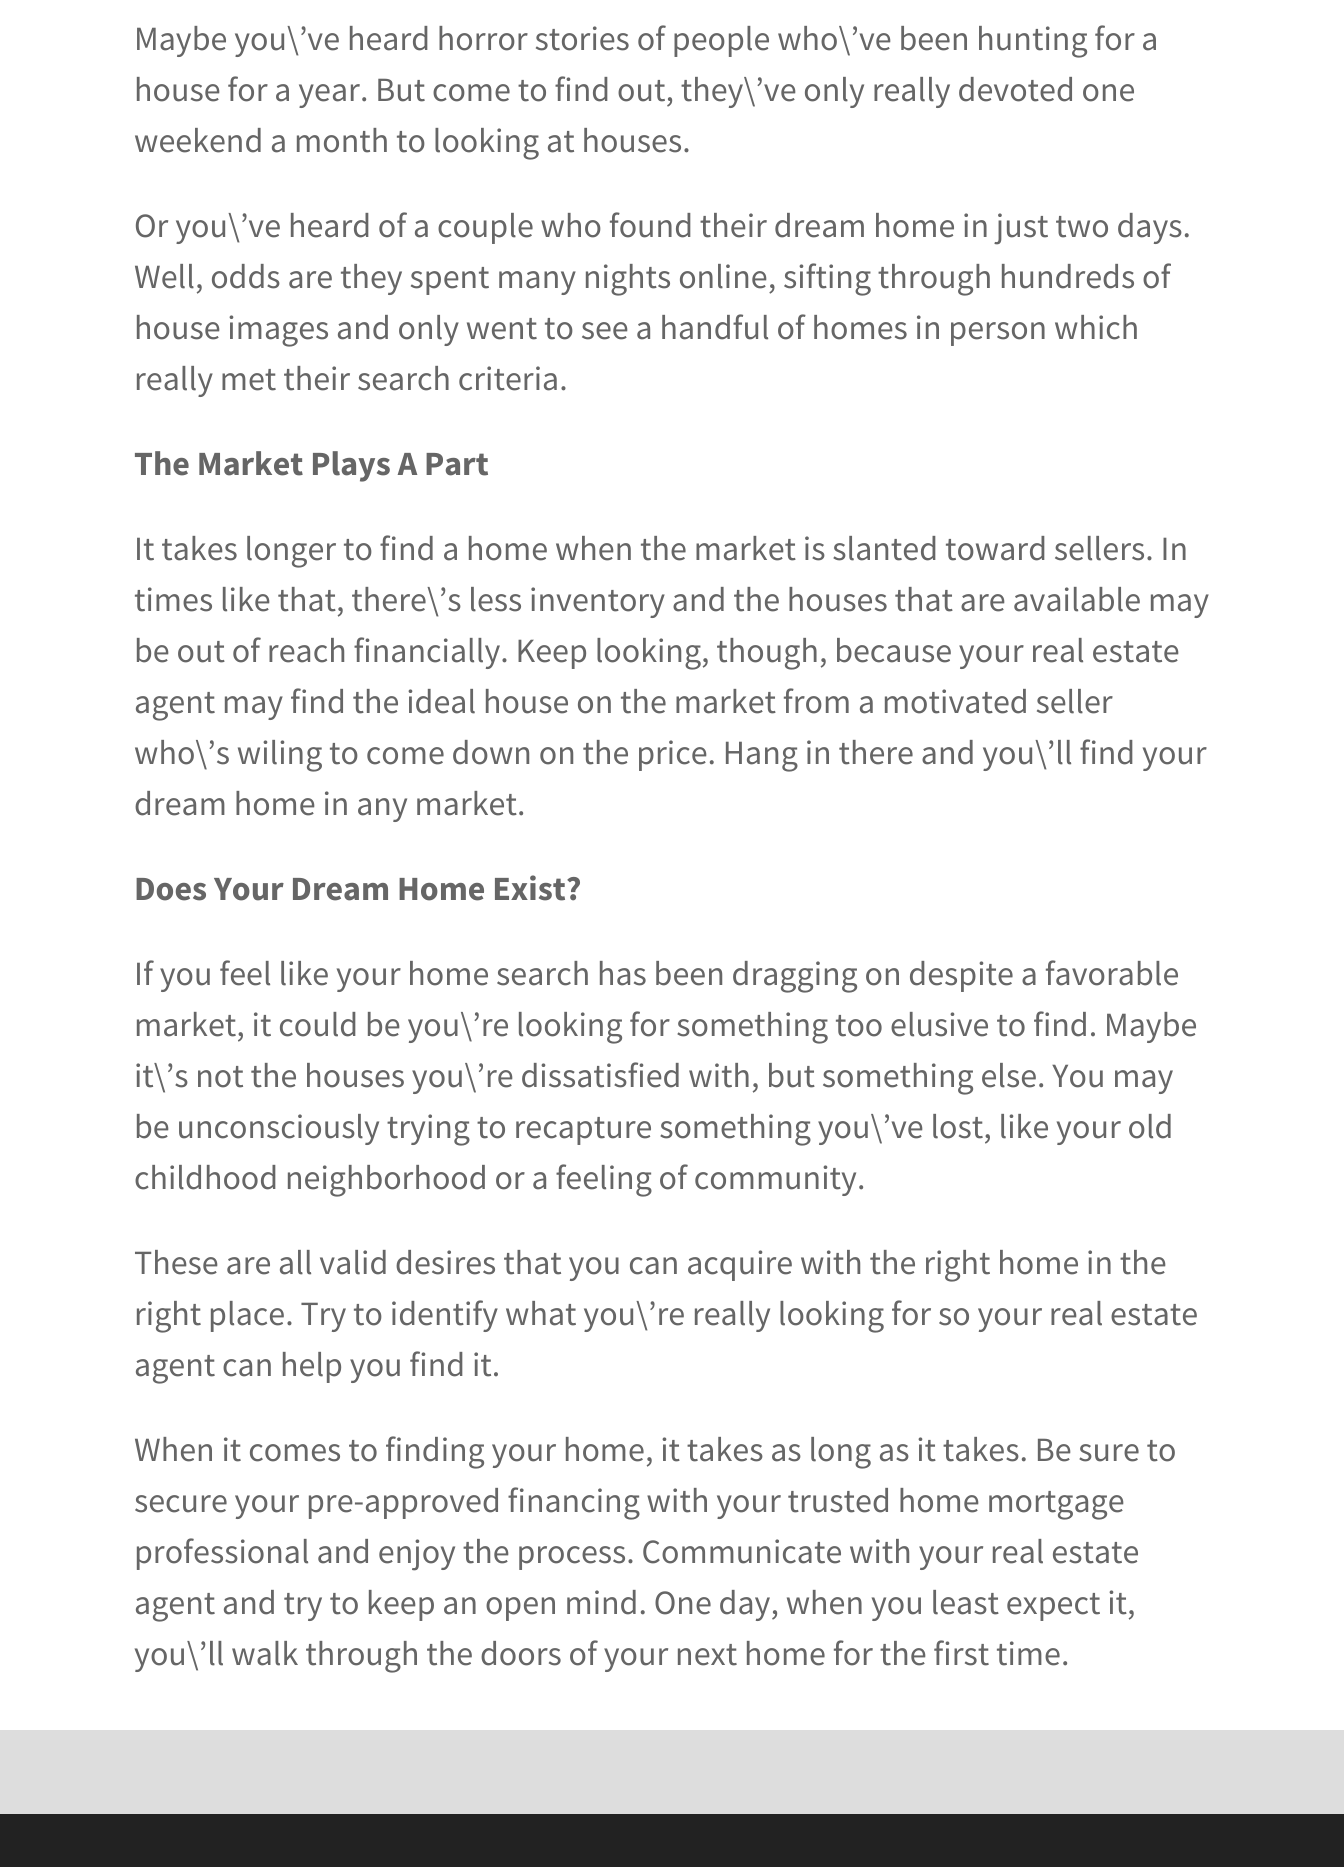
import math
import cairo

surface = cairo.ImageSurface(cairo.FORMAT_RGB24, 1344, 1867)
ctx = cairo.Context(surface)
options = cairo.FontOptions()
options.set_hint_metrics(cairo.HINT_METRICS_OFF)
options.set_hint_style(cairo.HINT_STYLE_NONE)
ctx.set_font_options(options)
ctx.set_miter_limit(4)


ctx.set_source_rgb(0.867, 0.867, 0.867)
ctx.paint()
ctx.set_source_rgb(1, 1, 1)
ctx.rectangle(0, 0, 1344, 1730)
ctx.fill()
ctx.select_font_face("Source Sans Pro")
ctx.set_font_size(34)
ctx.set_source_rgb(0.4, 0.4, 0.4)
ctx.move_to(134, 50)
ctx.show_text("Maybe you\\’ve heard horror stories of people who\\’ve been hunting for a")
ctx.move_to(134, 101)
ctx.show_text("house for a year. But come to find out, they\\’ve only really devoted one")
ctx.move_to(134, 152)
ctx.show_text("weekend a month to looking at houses.")
ctx.move_to(134, 237)
ctx.show_text("Or you\\’ve heard of a couple who found their dream home in just two days.")
ctx.move_to(134, 288)
ctx.show_text("Well, odds are they spent many nights online, sifting through hundreds of")
ctx.move_to(134, 339)
ctx.show_text("house images and only went to see a handful of homes in person which")
ctx.move_to(134, 390)
ctx.show_text("really met their search criteria.")
ctx.select_font_face("Source Sans Pro", cairo.FONT_SLANT_NORMAL, cairo.FONT_WEIGHT_BOLD)
ctx.move_to(134, 475)
ctx.show_text("The Market Plays A Part")
ctx.select_font_face("Source Sans Pro")
ctx.move_to(134, 560)
ctx.show_text("It takes longer to find a home when the market is slanted toward sellers. In")
ctx.move_to(134, 611)
ctx.show_text("times like that, there\\’s less inventory and the houses that are available may")
ctx.move_to(134, 662)
ctx.show_text("be out of reach financially. Keep looking, though, because your real estate")
ctx.move_to(134, 713)
ctx.show_text("agent may find the ideal house on the market from a motivated seller")
ctx.move_to(134, 764)
ctx.show_text("who\\’s wiling to come down on the price. Hang in there and you\\’ll find your")
ctx.move_to(134, 815)
ctx.show_text("dream home in any market.")
ctx.select_font_face("Source Sans Pro", cairo.FONT_SLANT_NORMAL, cairo.FONT_WEIGHT_BOLD)
ctx.move_to(134, 900)
ctx.show_text("Does Your Dream Home Exist?")
ctx.select_font_face("Source Sans Pro")
ctx.move_to(134, 985)
ctx.show_text("If you feel like your home search has been dragging on despite a favorable")
ctx.move_to(134, 1036)
ctx.show_text("market, it could be you\\’re looking for something too elusive to find. Maybe")
ctx.move_to(134, 1087)
ctx.show_text("it\\’s not the houses you\\’re dissatisfied with, but something else. You may")
ctx.move_to(134, 1138)
ctx.show_text("be unconsciously trying to recapture something you\\’ve lost, like your old")
ctx.move_to(134, 1189)
ctx.show_text("childhood neighborhood or a feeling of community.")
ctx.move_to(134, 1274)
ctx.show_text("These are all valid desires that you can acquire with the right home in the")
ctx.move_to(134, 1325)
ctx.show_text("right place. Try to identify what you\\’re really looking for so your real estate")
ctx.move_to(134, 1376)
ctx.show_text("agent can help you find it.")
ctx.move_to(134, 1461)
ctx.show_text("When it comes to finding your home, it takes as long as it takes. Be sure to")
ctx.move_to(134, 1512)
ctx.show_text("secure your pre-approved financing with your trusted home mortgage")
ctx.move_to(134, 1563)
ctx.show_text("professional and enjoy the process. Communicate with your real estate")
ctx.move_to(134, 1614)
ctx.show_text("agent and try to keep an open mind. One day, when you least expect it,")
ctx.move_to(134, 1665)
ctx.show_text("you\\’ll walk through the doors of your next home for the first time.")
ctx.set_source_rgb(0.133, 0.133, 0.133)
ctx.rectangle(0, 1814, 1344, 53)
ctx.fill()
surface.write_to_png("page.png")
